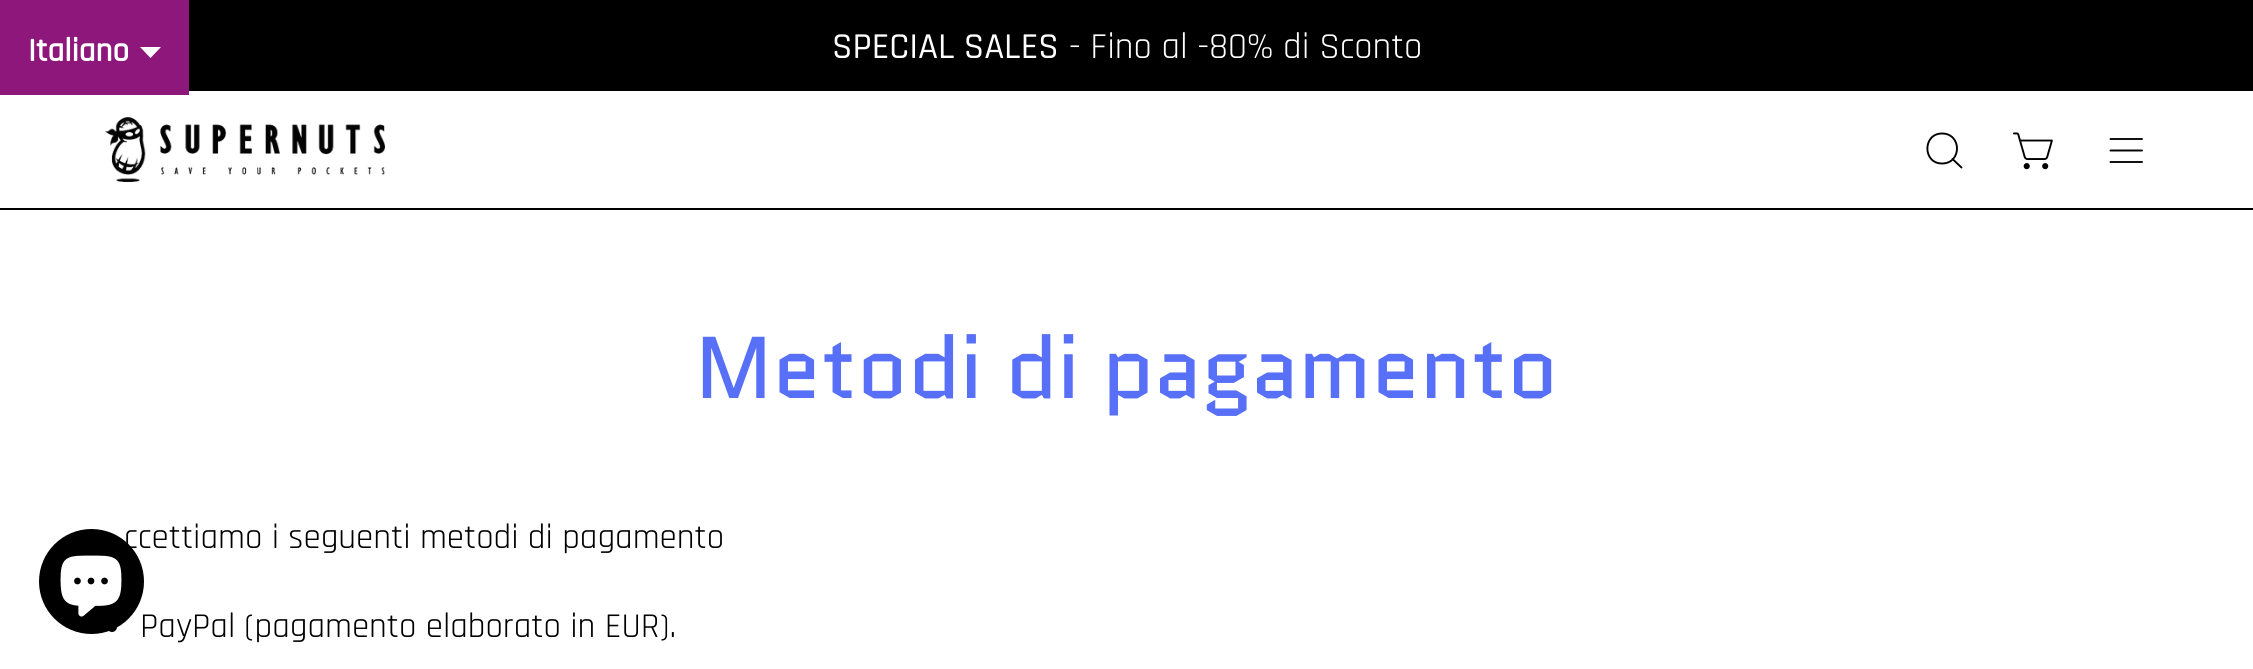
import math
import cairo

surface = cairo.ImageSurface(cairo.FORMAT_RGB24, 2253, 669)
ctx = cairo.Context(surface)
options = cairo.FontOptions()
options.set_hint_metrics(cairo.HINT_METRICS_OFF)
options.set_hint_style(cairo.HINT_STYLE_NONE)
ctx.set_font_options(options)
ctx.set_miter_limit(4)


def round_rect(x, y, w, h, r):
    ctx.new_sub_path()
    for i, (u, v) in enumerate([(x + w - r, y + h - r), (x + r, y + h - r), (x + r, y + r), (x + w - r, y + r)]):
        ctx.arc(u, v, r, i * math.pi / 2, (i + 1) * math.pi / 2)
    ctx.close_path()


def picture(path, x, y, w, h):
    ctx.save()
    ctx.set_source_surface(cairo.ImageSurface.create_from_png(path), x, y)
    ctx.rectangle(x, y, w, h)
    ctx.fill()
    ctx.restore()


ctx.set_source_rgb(1, 1, 1)
ctx.paint()
ctx.set_source_rgb(0.553, 0.09, 0.482)
ctx.rectangle(0, 0, 189, 95)
ctx.fill()
ctx.select_font_face("Rajdhani", cairo.FONT_SLANT_NORMAL, cairo.FONT_WEIGHT_BOLD)
ctx.set_font_size(33)
ctx.set_source_rgb(1, 1, 1)
ctx.move_to(28, 61)
ctx.show_text("Italiano")
ctx.new_path()
ctx.move_to(140, 47)
ctx.line_to(161, 47)
ctx.line_to(150.5, 58)
ctx.close_path()
ctx.fill()
ctx.set_source_rgb(0, 0, 0)
ctx.rectangle(189, 0, 2064, 91)
ctx.fill()
ctx.select_font_face("Rajdhani Medium")
ctx.set_font_size(36.75)
ctx.set_source_rgb(1, 1, 1)
ctx.move_to(832, 58)
ctx.show_text("SPECIAL SALES")
ctx.select_font_face("Rajdhani")
ctx.move_to(1069, 58)
ctx.show_text("- Fino al -80% di Sconto")
ctx.set_source_rgb(0, 0, 0)
ctx.rectangle(0, 208, 2253, 2)
ctx.fill()
picture("img1.png", 105, 117, 280, 65)
ctx.new_path()
ctx.move_to(1942, 163.5)
ctx.curve_to(1962, 163.5, 1962, 133.5, 1942, 133.5)
ctx.curve_to(1922.5, 133.5, 1922.5, 163.5, 1942, 163.5)
ctx.close_path()
ctx.move_to(1952.5, 159)
ctx.line_to(1961.5, 167.5)
ctx.set_line_width(1.9)
ctx.set_line_cap(cairo.LINE_CAP_ROUND)
ctx.set_line_join(cairo.LINE_JOIN_ROUND)
ctx.stroke()
picture("img2.png", 2013, 132, 40, 38)
ctx.new_path()
ctx.move_to(2110.5, 150.5)
ctx.line_to(2142, 150.5)
ctx.move_to(2110.5, 139)
ctx.line_to(2142, 139)
ctx.move_to(2110.5, 162)
ctx.line_to(2142, 162)
ctx.stroke()
round_rect(107, 621, 10, 11, 5)
ctx.fill()
ctx.arc(91.5, 581.5, 52.5, 0, 2 * math.pi)
ctx.fill()
picture("img3.png", 60, 555, 62, 62)
ctx.select_font_face("Quantico")
ctx.set_font_size(87.5)
ctx.set_source_rgb(0.345, 0.439, 0.965)
ctx.move_to(695, 398)
ctx.show_text("Metodi di pagamento")
ctx.select_font_face("Rajdhani")
ctx.set_font_size(35)
ctx.set_source_rgb(0, 0, 0)
ctx.move_to(124, 548)
ctx.show_text("ccettiamo i seguenti metodi di pagamento")
ctx.move_to(140, 637)
ctx.show_text("PayPal (pagamento elaborato in EUR).")
surface.write_to_png("page.png")
